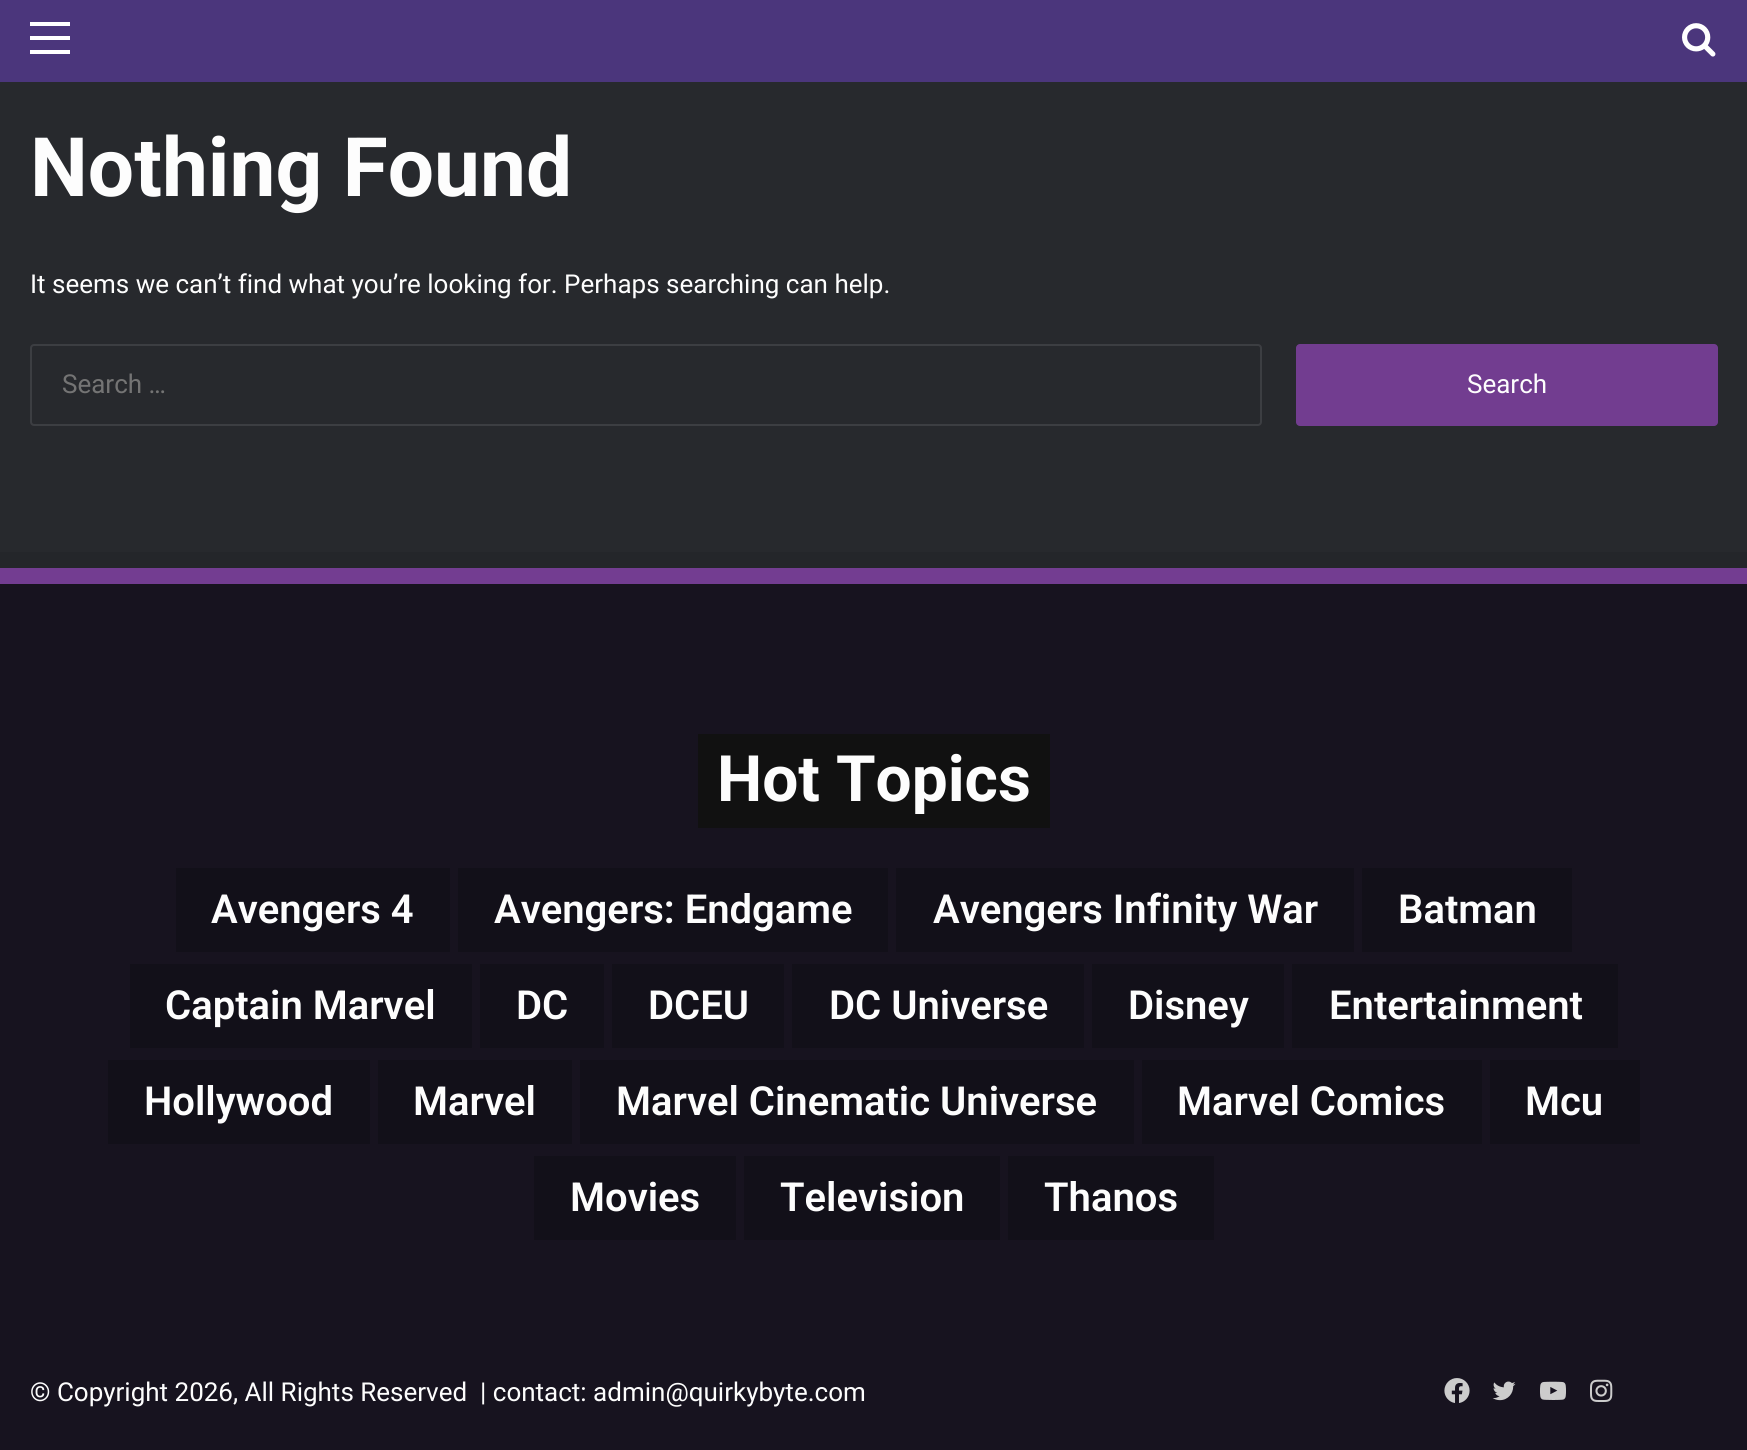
import math
import cairo

surface = cairo.ImageSurface(cairo.FORMAT_RGB24, 1747, 1450)
ctx = cairo.Context(surface)
options = cairo.FontOptions()
options.set_hint_metrics(cairo.HINT_METRICS_OFF)
options.set_hint_style(cairo.HINT_STYLE_NONE)
ctx.set_font_options(options)
ctx.set_miter_limit(4)


def round_rect(x, y, w, h, r):
    ctx.new_sub_path()
    for i, (u, v) in enumerate([(x + w - r, y + h - r), (x + r, y + h - r), (x + r, y + r), (x + w - r, y + r)]):
        ctx.arc(u, v, r, i * math.pi / 2, (i + 1) * math.pi / 2)
    ctx.close_path()


def picture(path, x, y, w, h):
    ctx.save()
    ctx.set_source_surface(cairo.ImageSurface.create_from_png(path), x, y)
    ctx.rectangle(x, y, w, h)
    ctx.fill()
    ctx.restore()


ctx.set_source_rgb(0.153, 0.161, 0.176)
ctx.paint()
ctx.set_source_rgb(0.294, 0.212, 0.486)
ctx.rectangle(0, 0, 1747, 82)
ctx.fill()
ctx.set_source_rgb(1, 1, 1)
ctx.rectangle(30, 36, 40, 4)
ctx.fill()
ctx.rectangle(30, 22, 40, 4)
ctx.fill()
ctx.rectangle(30, 50, 40, 4)
ctx.fill()
picture("img1.png", 1682, 23, 34, 34)
ctx.select_font_face("Roboto", cairo.FONT_SLANT_NORMAL, cairo.FONT_WEIGHT_BOLD)
ctx.set_font_size(82)
ctx.set_source_rgb(0.992, 0.992, 0.992)
ctx.move_to(30, 196)
ctx.show_text("Nothing Found")
ctx.select_font_face("Roboto")
ctx.set_font_size(26)
ctx.move_to(30, 293)
ctx.show_text("It seems we can’t find what you’re looking for. Perhaps searching can help.")
round_rect(31, 345, 1230, 80, 3)
ctx.set_source_rgb(0.235, 0.243, 0.259)
ctx.stroke()
ctx.set_source_rgb(0.455, 0.455, 0.455)
ctx.move_to(62, 393)
ctx.show_text("Search …")
ctx.set_source_rgb(0.447, 0.239, 0.565)
round_rect(1296, 344, 422, 82, 4)
ctx.fill()
ctx.set_source_rgb(0.992, 0.992, 0.992)
ctx.move_to(1467, 393)
ctx.show_text("Search")
ctx.set_source_rgb(0.09, 0.078, 0.122)
ctx.rectangle(0, 584, 1747, 866)
ctx.fill()
ctx.set_source_rgb(0.141, 0.149, 0.165)
ctx.rectangle(0, 552, 1747, 16)
ctx.fill()
ctx.set_source_rgb(0.451, 0.239, 0.569)
ctx.rectangle(0, 568, 1747, 16)
ctx.fill()
ctx.set_source_rgb(0.067, 0.067, 0.067)
ctx.rectangle(698, 734, 352, 94)
ctx.fill()
ctx.select_font_face("Roboto", cairo.FONT_SLANT_NORMAL, cairo.FONT_WEIGHT_BOLD)
ctx.set_font_size(64)
ctx.set_source_rgb(0.992, 0.992, 0.992)
ctx.move_to(717, 801)
ctx.show_text("Hot Topics")
ctx.set_source_rgb(0.071, 0.063, 0.098)
ctx.rectangle(176, 868, 274, 84)
ctx.fill()
ctx.select_font_face("Roboto SemiBold")
ctx.set_font_size(40)
ctx.set_source_rgb(0.992, 0.992, 0.992)
ctx.move_to(211, 923)
ctx.show_text("Avengers 4")
ctx.set_source_rgb(0.071, 0.063, 0.098)
ctx.rectangle(458, 868, 430, 84)
ctx.fill()
ctx.set_source_rgb(0.992, 0.992, 0.992)
ctx.move_to(494, 923)
ctx.show_text("Avengers: Endgame")
ctx.set_source_rgb(0.071, 0.063, 0.098)
ctx.rectangle(896, 868, 458, 84)
ctx.fill()
ctx.set_source_rgb(0.992, 0.992, 0.992)
ctx.move_to(933, 923)
ctx.show_text("Avengers Infinity War")
ctx.set_source_rgb(0.071, 0.063, 0.098)
ctx.rectangle(1362, 868, 210, 84)
ctx.fill()
ctx.set_source_rgb(0.992, 0.992, 0.992)
ctx.move_to(1398, 923)
ctx.show_text("Batman")
ctx.set_source_rgb(0.071, 0.063, 0.098)
ctx.rectangle(130, 964, 342, 84)
ctx.fill()
ctx.set_source_rgb(0.992, 0.992, 0.992)
ctx.move_to(165, 1019)
ctx.show_text("Captain Marvel")
ctx.set_source_rgb(0.071, 0.063, 0.098)
ctx.rectangle(480, 964, 124, 84)
ctx.fill()
ctx.set_source_rgb(0.992, 0.992, 0.992)
ctx.move_to(516, 1019)
ctx.show_text("DC")
ctx.set_source_rgb(0.071, 0.063, 0.098)
ctx.rectangle(612, 964, 172, 84)
ctx.fill()
ctx.set_source_rgb(0.992, 0.992, 0.992)
ctx.move_to(648, 1019)
ctx.show_text("DCEU")
ctx.set_source_rgb(0.071, 0.063, 0.098)
ctx.rectangle(792, 964, 292, 84)
ctx.fill()
ctx.set_source_rgb(0.992, 0.992, 0.992)
ctx.move_to(829, 1019)
ctx.show_text("DC Universe")
ctx.set_source_rgb(0.071, 0.063, 0.098)
ctx.rectangle(1092, 964, 192, 84)
ctx.fill()
ctx.set_source_rgb(0.992, 0.992, 0.992)
ctx.move_to(1128, 1019)
ctx.show_text("Disney")
ctx.set_source_rgb(0.071, 0.063, 0.098)
ctx.rectangle(1292, 964, 326, 84)
ctx.fill()
ctx.set_source_rgb(0.992, 0.992, 0.992)
ctx.move_to(1329, 1019)
ctx.show_text("Entertainment")
ctx.set_source_rgb(0.071, 0.063, 0.098)
ctx.rectangle(108, 1060, 262, 84)
ctx.fill()
ctx.set_source_rgb(0.992, 0.992, 0.992)
ctx.move_to(144, 1115)
ctx.show_text("Hollywood")
ctx.set_source_rgb(0.071, 0.063, 0.098)
ctx.rectangle(378, 1060, 194, 84)
ctx.fill()
ctx.set_source_rgb(0.992, 0.992, 0.992)
ctx.move_to(413, 1115)
ctx.show_text("Marvel")
ctx.set_source_rgb(0.071, 0.063, 0.098)
ctx.rectangle(580, 1060, 554, 84)
ctx.fill()
ctx.set_source_rgb(0.992, 0.992, 0.992)
ctx.move_to(616, 1115)
ctx.show_text("Marvel Cinematic Universe")
ctx.set_source_rgb(0.071, 0.063, 0.098)
ctx.rectangle(1142, 1060, 340, 84)
ctx.fill()
ctx.set_source_rgb(0.992, 0.992, 0.992)
ctx.move_to(1177, 1115)
ctx.show_text("Marvel Comics")
ctx.set_source_rgb(0.071, 0.063, 0.098)
ctx.rectangle(1490, 1060, 150, 84)
ctx.fill()
ctx.set_source_rgb(0.992, 0.992, 0.992)
ctx.move_to(1525, 1115)
ctx.show_text("Mcu")
ctx.set_source_rgb(0.071, 0.063, 0.098)
ctx.rectangle(534, 1156, 202, 84)
ctx.fill()
ctx.set_source_rgb(0.992, 0.992, 0.992)
ctx.move_to(570, 1211)
ctx.show_text("Movies")
ctx.set_source_rgb(0.071, 0.063, 0.098)
ctx.rectangle(744, 1156, 256, 84)
ctx.fill()
ctx.set_source_rgb(0.992, 0.992, 0.992)
ctx.move_to(780, 1211)
ctx.show_text("Television")
ctx.set_source_rgb(0.071, 0.063, 0.098)
ctx.rectangle(1008, 1156, 206, 84)
ctx.fill()
ctx.set_source_rgb(0.992, 0.992, 0.992)
ctx.move_to(1044, 1211)
ctx.show_text("Thanos")
ctx.select_font_face("Roboto")
ctx.set_font_size(26)
ctx.move_to(30, 1401)
ctx.show_text("© Copyright 2026, All Rights Reserved  | contact: admin@quirkybyte.com")
picture("img2.png", 1444, 1378, 26, 25)
picture("img3.png", 1492, 1381, 24, 20)
picture("img4.png", 1540, 1381, 26, 19)
picture("img5.png", 1590, 1379, 23, 23)
surface.write_to_png("page.png")
